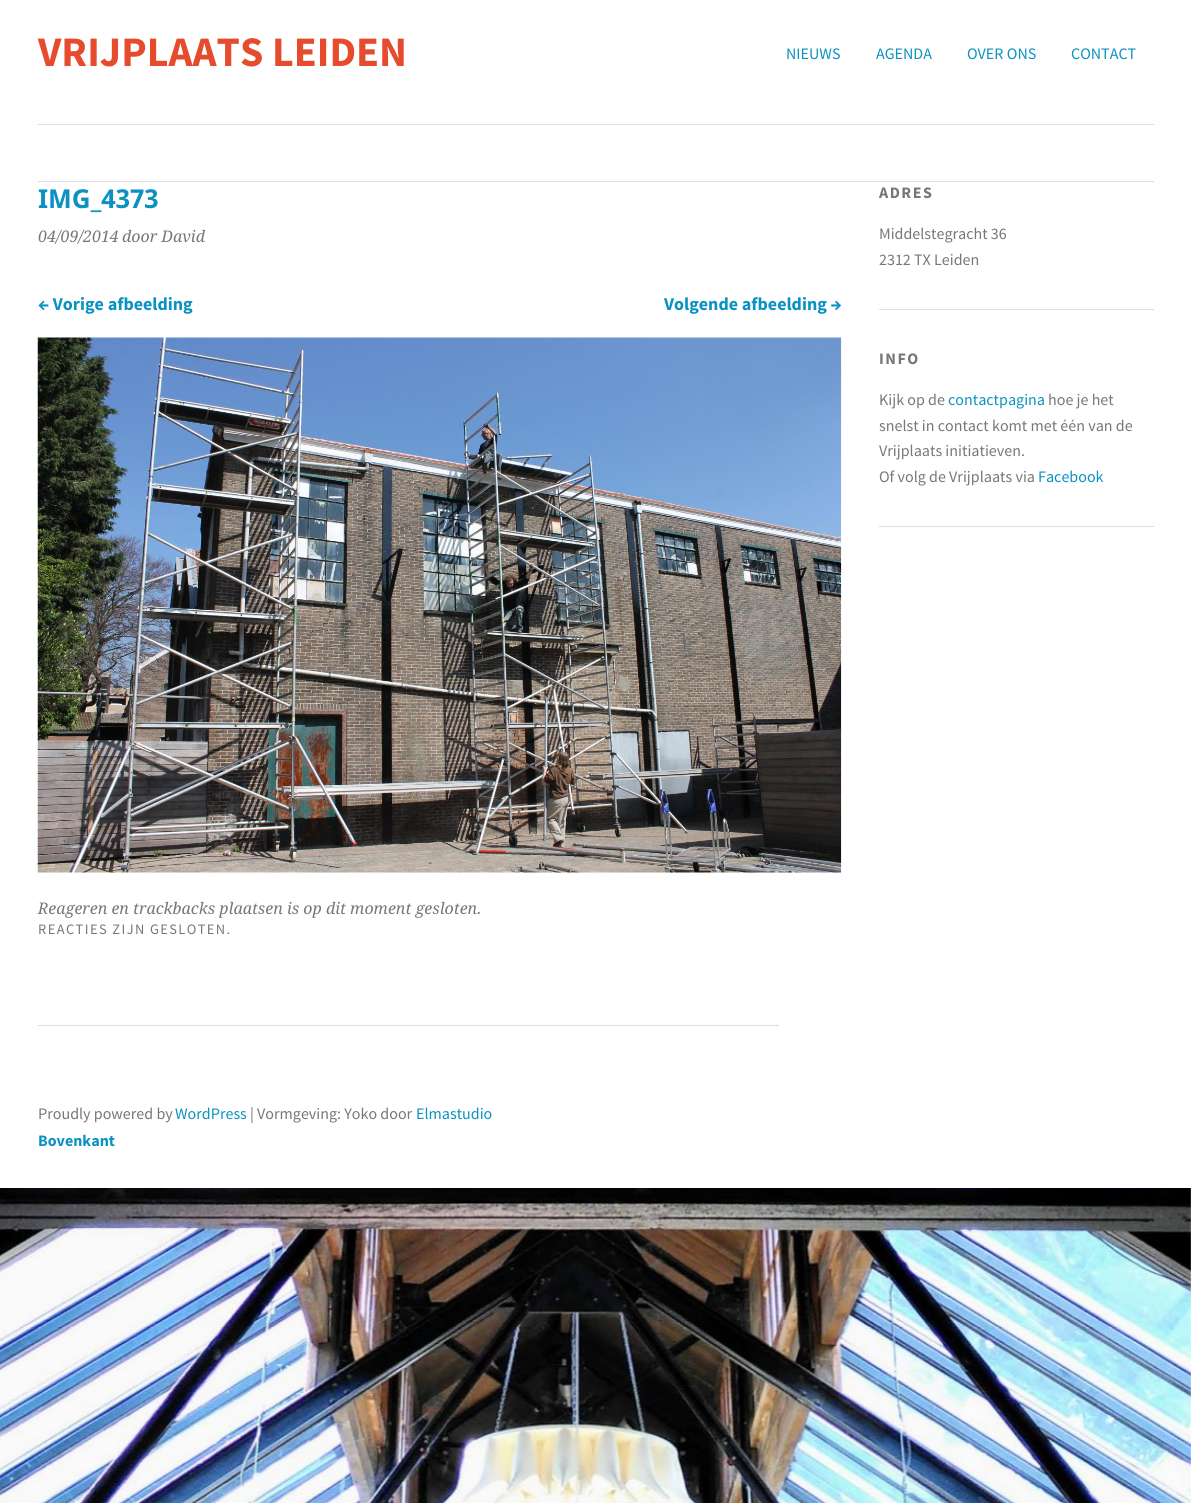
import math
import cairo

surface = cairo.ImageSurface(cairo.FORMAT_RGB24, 1191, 1503)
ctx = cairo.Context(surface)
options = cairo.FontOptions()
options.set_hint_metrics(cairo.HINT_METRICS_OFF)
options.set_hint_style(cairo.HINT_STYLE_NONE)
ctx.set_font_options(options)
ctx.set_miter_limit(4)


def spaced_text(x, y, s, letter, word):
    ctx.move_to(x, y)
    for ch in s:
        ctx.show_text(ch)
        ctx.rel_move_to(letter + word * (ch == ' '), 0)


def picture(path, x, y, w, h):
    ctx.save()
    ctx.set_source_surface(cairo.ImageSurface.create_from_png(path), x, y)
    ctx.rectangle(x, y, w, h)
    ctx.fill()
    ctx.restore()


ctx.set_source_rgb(1, 1, 1)
ctx.paint()
picture("img1.png", 0, 1188, 1191, 315)
ctx.select_font_face("Source Sans Pro", cairo.FONT_SLANT_NORMAL, cairo.FONT_WEIGHT_BOLD)
ctx.set_font_size(42)
ctx.set_source_rgb(0.898, 0.294, 0.173)
ctx.move_to(38, 66)
ctx.show_text("VRIJPLAATS LEIDEN")
ctx.select_font_face("Source Sans Pro")
ctx.set_font_size(16)
ctx.set_source_rgb(0.043, 0.569, 0.761)
ctx.move_to(786, 59)
ctx.show_text("NIEUWS")
ctx.move_to(876, 59)
ctx.show_text("AGENDA")
ctx.move_to(967, 59)
ctx.show_text("OVER ONS")
ctx.move_to(1071, 59)
ctx.show_text("CONTACT")
ctx.set_source_rgb(0.867, 0.867, 0.867)
ctx.rectangle(38, 124, 1116, 1)
ctx.fill()
ctx.rectangle(38, 181, 1116, 1)
ctx.fill()
ctx.select_font_face("Droid Sans", cairo.FONT_SLANT_NORMAL, cairo.FONT_WEIGHT_BOLD)
ctx.set_font_size(26)
ctx.set_source_rgb(0.043, 0.569, 0.761)
ctx.move_to(38, 208)
ctx.show_text("IMG_4373")
ctx.select_font_face("Droid Serif", cairo.FONT_SLANT_ITALIC)
ctx.set_font_size(16)
ctx.set_source_rgb(0.467, 0.467, 0.467)
ctx.move_to(38, 242)
ctx.show_text("04/09/2014")
ctx.move_to(122, 242)
ctx.show_text("door David")
ctx.select_font_face("Source Sans Pro", cairo.FONT_SLANT_NORMAL, cairo.FONT_WEIGHT_BOLD)
ctx.set_font_size(18)
ctx.set_source_rgb(0.043, 0.569, 0.761)
ctx.move_to(38, 310)
ctx.show_text("← Vorige afbeelding")
ctx.move_to(664, 310)
ctx.show_text("Volgende afbeelding →")
picture("img2.png", 37, 337, 805, 536)
ctx.select_font_face("Droid Serif", cairo.FONT_SLANT_ITALIC)
ctx.set_font_size(16)
ctx.set_source_rgb(0.467, 0.467, 0.467)
ctx.move_to(38, 914)
ctx.show_text("Reageren en trackbacks plaatsen is op dit moment gesloten.")
ctx.select_font_face("Source Sans Pro")
ctx.set_font_size(14.4)
spaced_text(38, 934, "REACTIES ZIJN GESLOTEN.", 1.4, 0)
ctx.set_source_rgb(0.867, 0.867, 0.867)
ctx.rectangle(38, 1025, 741, 1)
ctx.fill()
ctx.rectangle(879, 309, 275, 1)
ctx.fill()
ctx.select_font_face("Source Sans Pro", cairo.FONT_SLANT_NORMAL, cairo.FONT_WEIGHT_BOLD)
ctx.set_font_size(16)
ctx.set_source_rgb(0.467, 0.467, 0.467)
spaced_text(879, 198, "ADRES", 1.5, 0)
ctx.select_font_face("Source Sans Pro")
ctx.move_to(879, 239)
ctx.show_text("Middelstegracht 36")
ctx.move_to(879, 265)
ctx.show_text("2312 TX Leiden")
ctx.set_source_rgb(0.867, 0.867, 0.867)
ctx.rectangle(879, 526, 275, 1)
ctx.fill()
ctx.select_font_face("Source Sans Pro", cairo.FONT_SLANT_NORMAL, cairo.FONT_WEIGHT_BOLD)
ctx.set_source_rgb(0.467, 0.467, 0.467)
spaced_text(879, 364, "INFO", 1.5, 0)
ctx.select_font_face("Source Sans Pro")
ctx.move_to(879, 405)
ctx.show_text("Kijk op de")
ctx.set_source_rgb(0.043, 0.569, 0.761)
ctx.move_to(948, 405)
ctx.show_text("contactpagina")
ctx.set_source_rgb(0.467, 0.467, 0.467)
ctx.move_to(1048, 405)
ctx.show_text("hoe je het")
ctx.move_to(879, 431)
ctx.show_text("snelst in contact komt met één van de")
ctx.move_to(879, 456)
ctx.show_text("Vrijplaats initiatieven.")
ctx.move_to(879, 482)
ctx.show_text("Of volg de Vrijplaats via")
ctx.set_source_rgb(0.043, 0.569, 0.761)
ctx.move_to(1038, 482)
ctx.show_text("Facebook")
ctx.set_source_rgb(0.467, 0.467, 0.467)
ctx.move_to(38, 1119)
ctx.show_text("Proudly powered by")
ctx.set_source_rgb(0.043, 0.569, 0.761)
ctx.move_to(175, 1119)
ctx.show_text("WordPress")
ctx.set_source_rgb(0.467, 0.467, 0.467)
ctx.move_to(250, 1119)
ctx.show_text("| Vormgeving: Yoko door")
ctx.set_source_rgb(0.043, 0.569, 0.761)
ctx.move_to(416, 1119)
ctx.show_text("Elmastudio")
ctx.select_font_face("Source Sans Pro", cairo.FONT_SLANT_NORMAL, cairo.FONT_WEIGHT_BOLD)
ctx.move_to(38, 1146)
ctx.show_text("Bovenkant")
surface.write_to_png("page.png")
